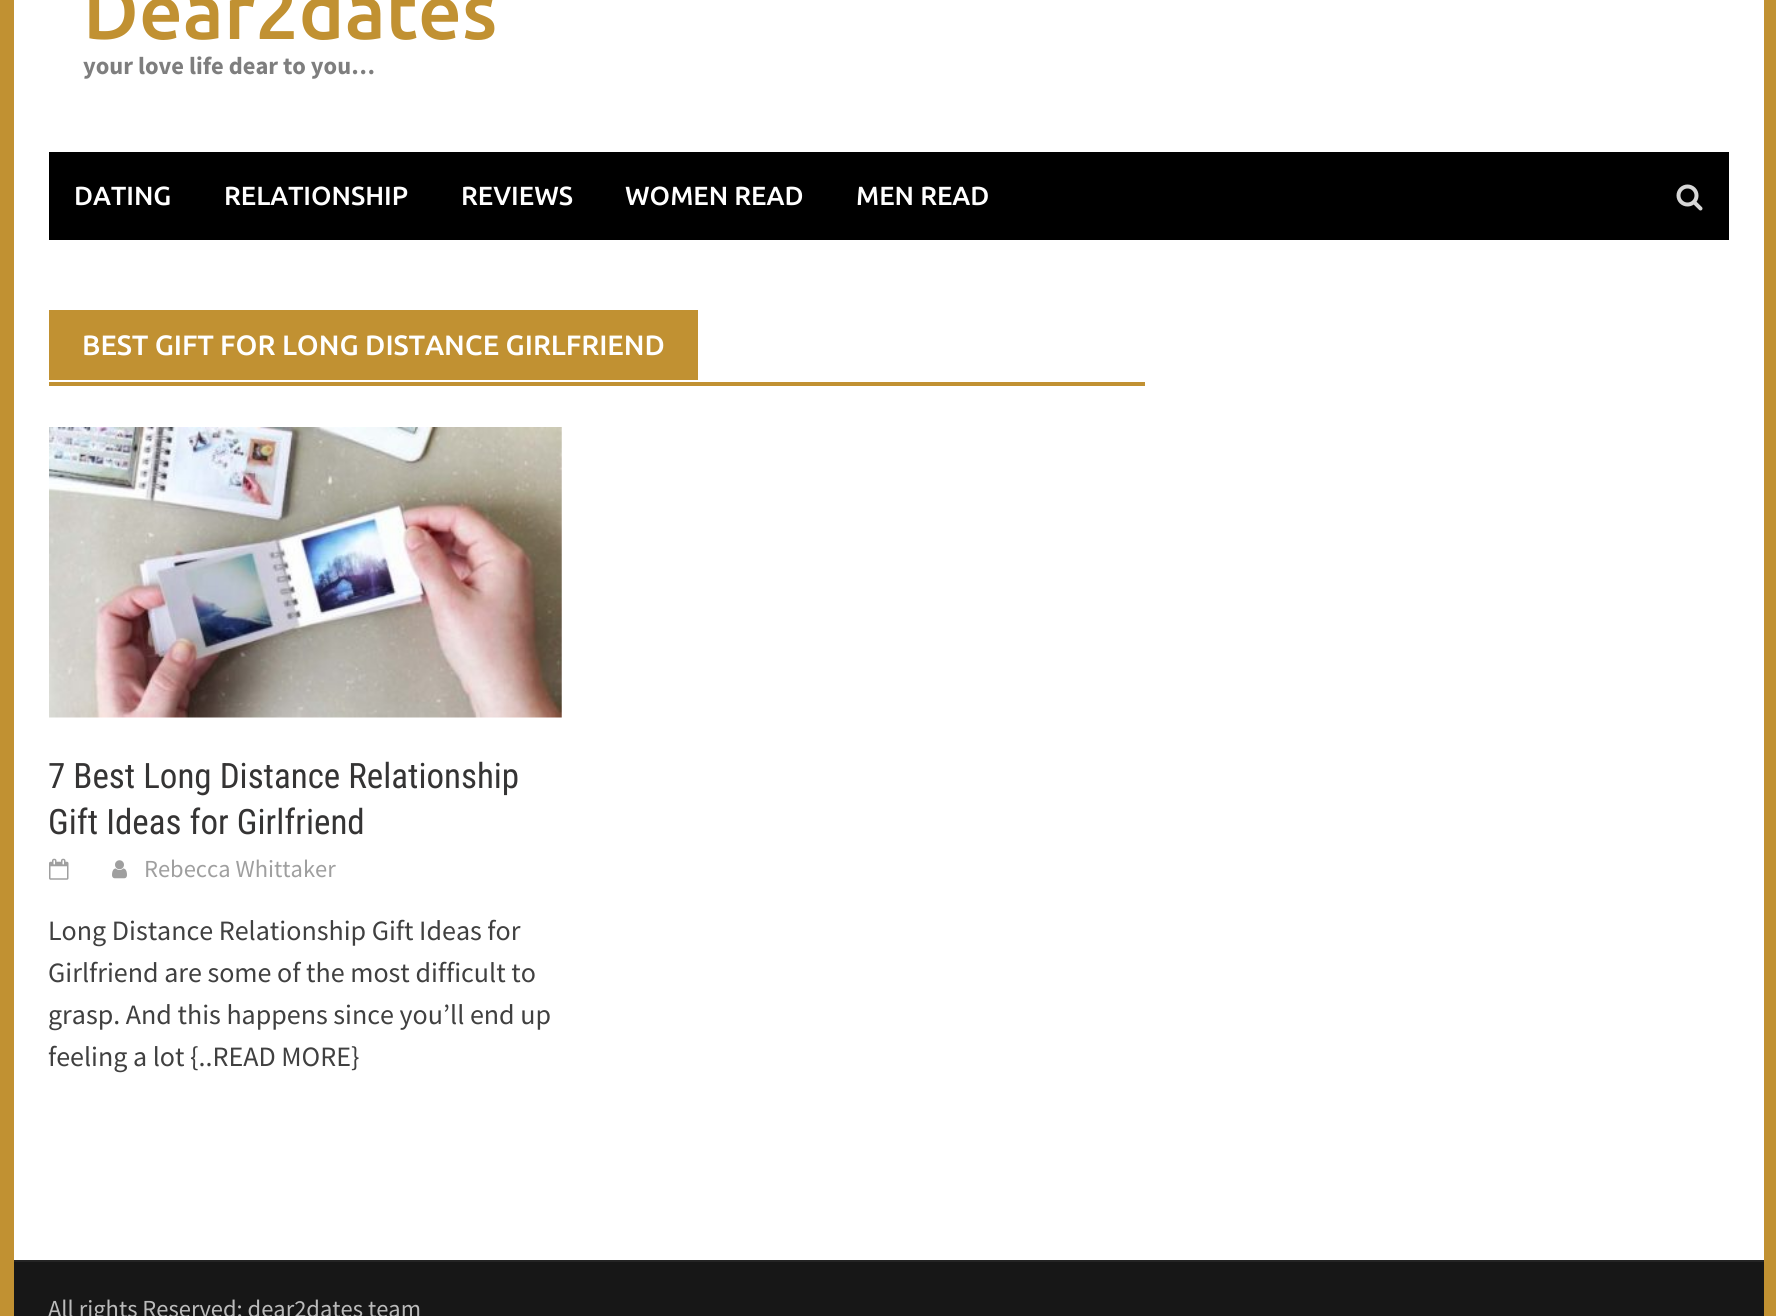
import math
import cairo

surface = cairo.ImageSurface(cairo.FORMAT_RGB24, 1776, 1316)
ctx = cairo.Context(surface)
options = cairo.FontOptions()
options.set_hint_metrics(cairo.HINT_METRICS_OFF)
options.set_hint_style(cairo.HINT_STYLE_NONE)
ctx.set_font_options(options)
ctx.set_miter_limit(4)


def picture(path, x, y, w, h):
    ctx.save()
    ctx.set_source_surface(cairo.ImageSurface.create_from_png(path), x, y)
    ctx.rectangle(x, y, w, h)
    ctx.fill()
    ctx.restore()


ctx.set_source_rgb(0.757, 0.569, 0.196)
ctx.paint()
ctx.set_source_rgb(1, 1, 1)
ctx.rectangle(14, 0, 1750, 1260)
ctx.fill()
ctx.select_font_face("Ubuntu Medium")
ctx.set_font_size(77)
ctx.set_source_rgb(0.757, 0.569, 0.196)
ctx.move_to(83, 39)
ctx.show_text("Dear2dates")
ctx.select_font_face("Source Sans Pro", cairo.FONT_SLANT_NORMAL, cairo.FONT_WEIGHT_BOLD)
ctx.set_font_size(24.5)
ctx.set_source_rgb(0.494, 0.494, 0.494)
ctx.move_to(83, 74)
ctx.show_text("your love life dear to you…")
ctx.set_source_rgb(0, 0, 0)
ctx.rectangle(49, 152, 1680, 88)
ctx.fill()
ctx.select_font_face("Ubuntu Medium")
ctx.set_font_size(26.25)
ctx.set_source_rgb(1, 1, 1)
ctx.move_to(74, 205)
ctx.show_text("DATING")
ctx.move_to(224, 205)
ctx.show_text("RELATIONSHIP")
ctx.move_to(461, 205)
ctx.show_text("REVIEWS")
ctx.move_to(625, 205)
ctx.show_text("WOMEN READ")
ctx.move_to(856, 205)
ctx.show_text("MEN READ")
picture("img1.png", 1676, 184, 27, 27)
ctx.set_source_rgb(0.757, 0.569, 0.196)
ctx.rectangle(49, 382, 1096, 4)
ctx.fill()
ctx.rectangle(49, 310, 649, 70)
ctx.fill()
ctx.set_font_size(28)
ctx.set_source_rgb(1, 1, 1)
ctx.move_to(82, 355)
ctx.show_text("BEST GIFT FOR LONG DISTANCE GIRLFRIEND")
picture("img2.png", 49, 427, 513, 291)
ctx.select_font_face("Roboto Condensed")
ctx.set_font_size(35)
ctx.set_source_rgb(0.208, 0.204, 0.204)
ctx.move_to(48, 788)
ctx.show_text("7 Best Long Distance Relationship")
ctx.move_to(48, 834)
ctx.show_text("Gift Ideas for Girlfriend")
picture("img3.png", 49, 858, 20, 22)
picture("img4.png", 112, 860, 15, 19)
ctx.select_font_face("Source Sans Pro")
ctx.set_font_size(24.5)
ctx.set_source_rgb(0.624, 0.624, 0.624)
ctx.move_to(144, 877)
ctx.show_text("Rebecca Whittaker")
ctx.set_font_size(28)
ctx.set_source_rgb(0.251, 0.251, 0.251)
ctx.move_to(48, 940)
ctx.show_text("Long Distance Relationship Gift Ideas for")
ctx.move_to(48, 982)
ctx.show_text("Girlfriend are some of the most difficult to")
ctx.move_to(48, 1024)
ctx.show_text("grasp. And this happens since you’ll end up")
ctx.move_to(48, 1066)
ctx.show_text("feeling a lot {..READ MORE}")
ctx.set_source_rgb(0.141, 0.141, 0.141)
ctx.rectangle(14, 1260, 1750, 2)
ctx.fill()
ctx.set_source_rgb(0.09, 0.09, 0.09)
ctx.rectangle(14, 1262, 1750, 54)
ctx.fill()
ctx.set_font_size(24.5)
ctx.set_source_rgb(0.733, 0.733, 0.733)
ctx.move_to(48, 1317)
ctx.show_text("All rights Reserved; dear2dates team")
surface.write_to_png("page.png")
